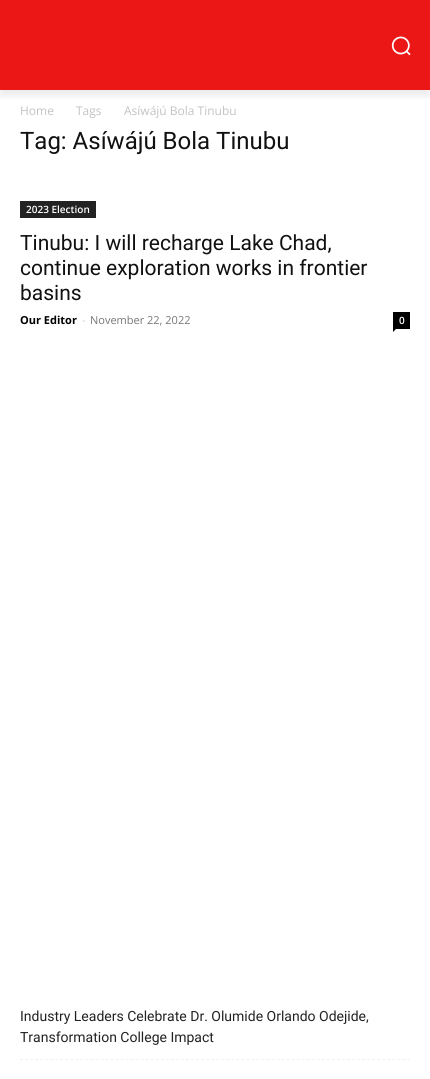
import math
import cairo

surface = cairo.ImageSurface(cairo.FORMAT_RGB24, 430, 1079)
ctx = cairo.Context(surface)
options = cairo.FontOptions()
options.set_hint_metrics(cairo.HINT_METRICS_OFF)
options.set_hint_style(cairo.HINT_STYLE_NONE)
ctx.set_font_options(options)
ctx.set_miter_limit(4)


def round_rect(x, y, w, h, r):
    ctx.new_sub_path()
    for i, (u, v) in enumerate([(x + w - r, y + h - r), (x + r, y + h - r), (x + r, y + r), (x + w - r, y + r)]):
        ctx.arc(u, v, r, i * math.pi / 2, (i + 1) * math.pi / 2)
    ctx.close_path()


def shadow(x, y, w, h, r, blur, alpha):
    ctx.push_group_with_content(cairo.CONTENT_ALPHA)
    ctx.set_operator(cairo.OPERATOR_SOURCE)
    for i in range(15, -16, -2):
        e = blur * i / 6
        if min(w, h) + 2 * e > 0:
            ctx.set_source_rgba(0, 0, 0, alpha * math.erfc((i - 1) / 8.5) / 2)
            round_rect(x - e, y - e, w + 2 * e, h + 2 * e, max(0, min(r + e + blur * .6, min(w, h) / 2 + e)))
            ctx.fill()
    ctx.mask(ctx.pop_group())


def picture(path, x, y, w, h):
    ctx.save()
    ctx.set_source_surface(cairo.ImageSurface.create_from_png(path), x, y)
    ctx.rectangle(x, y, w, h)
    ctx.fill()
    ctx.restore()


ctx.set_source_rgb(1, 1, 1)
ctx.paint()
ctx.set_source_rgb(0.918, 0.09, 0.09)
ctx.rectangle(0, 0, 430, 90)
ctx.fill()
picture("img1.png", 391, 36, 20, 20)
ctx.save()
ctx.rectangle(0, 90, 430, 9)
ctx.clip()
ctx.set_source_rgb(0, 0, 0)
shadow(0, 6, 430, 90, 0, 4, 0.08)
ctx.restore()
ctx.select_font_face("Open Sans")
ctx.set_font_size(12)
ctx.set_source_rgb(0.765, 0.765, 0.765)
ctx.move_to(20, 115)
ctx.show_text("Home")
ctx.move_to(76, 115)
ctx.show_text("Tags")
ctx.move_to(124, 115)
ctx.show_text("Asíwájú Bola Tinubu")
ctx.select_font_face("Roboto")
ctx.set_font_size(24)
ctx.set_source_rgb(0.067, 0.067, 0.067)
ctx.move_to(20, 149)
ctx.show_text("Tag: Asíwájú Bola Tinubu")
ctx.set_source_rgb(0.133, 0.133, 0.133)
ctx.rectangle(20, 201, 76, 17)
ctx.fill()
ctx.select_font_face("Open Sans SemiBold")
ctx.set_font_size(10)
ctx.set_source_rgb(1, 1, 1)
ctx.move_to(26, 213)
ctx.show_text("2023 Election")
ctx.select_font_face("Roboto")
ctx.set_font_size(21)
ctx.set_source_rgb(0.067, 0.067, 0.067)
ctx.move_to(20, 250)
ctx.show_text("Tinubu: I will recharge Lake Chad,")
ctx.move_to(20, 275)
ctx.show_text("continue exploration works in frontier")
ctx.move_to(20, 300)
ctx.show_text("basins")
ctx.select_font_face("Open Sans", cairo.FONT_SLANT_NORMAL, cairo.FONT_WEIGHT_BOLD)
ctx.set_font_size(11)
ctx.set_source_rgb(0, 0, 0)
ctx.move_to(20, 324)
ctx.show_text("Our Editor")
ctx.select_font_face("Open Sans")
ctx.set_source_rgb(0.8, 0.8, 0.8)
ctx.move_to(82, 324)
ctx.show_text("-")
ctx.set_source_rgb(0.463, 0.463, 0.463)
ctx.move_to(90, 324)
ctx.show_text("November 22, 2022")
ctx.set_source_rgb(0, 0, 0)
ctx.rectangle(393, 312, 17, 17)
ctx.fill()
ctx.select_font_face("Open Sans SemiBold")
ctx.set_font_size(10)
ctx.set_source_rgb(1, 1, 1)
ctx.move_to(399, 324)
ctx.show_text("0")
ctx.set_source_rgb(0, 0, 0)
ctx.new_path()
ctx.move_to(393, 329)
ctx.line_to(396, 329)
ctx.line_to(393, 332)
ctx.close_path()
ctx.fill()
ctx.new_path()
ctx.move_to(20, 1059.5)
ctx.line_to(410, 1059.5)
ctx.set_source_rgb(0.945, 0.945, 0.945)
ctx.set_line_width(1)
ctx.set_dash([3, 2.03])
ctx.stroke()
ctx.select_font_face("Roboto")
ctx.set_font_size(14)
ctx.set_source_rgb(0.133, 0.133, 0.133)
ctx.move_to(20, 1021)
ctx.show_text("Industry Leaders Celebrate Dr. Olumide Orlando Odejide,")
ctx.move_to(20, 1042)
ctx.show_text("Transformation College Impact")
surface.write_to_png("page.png")
